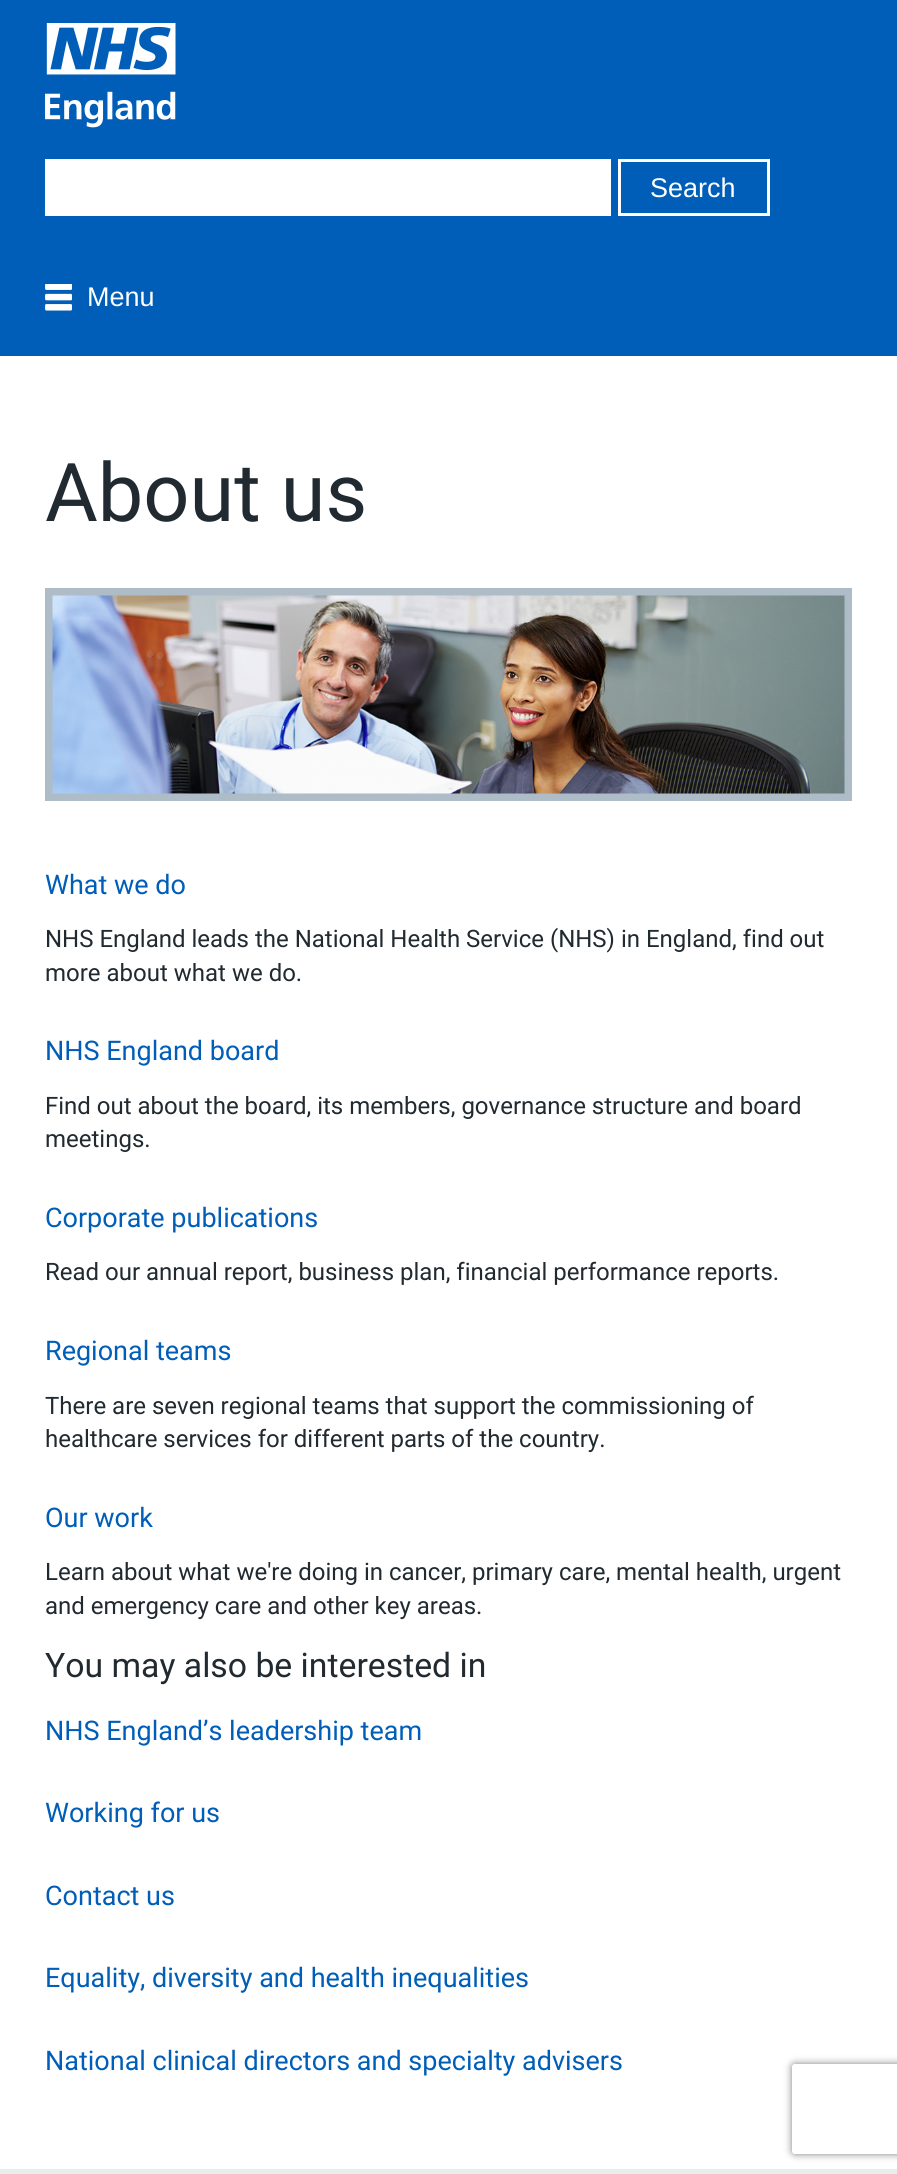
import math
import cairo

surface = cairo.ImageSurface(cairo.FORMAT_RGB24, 897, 2174)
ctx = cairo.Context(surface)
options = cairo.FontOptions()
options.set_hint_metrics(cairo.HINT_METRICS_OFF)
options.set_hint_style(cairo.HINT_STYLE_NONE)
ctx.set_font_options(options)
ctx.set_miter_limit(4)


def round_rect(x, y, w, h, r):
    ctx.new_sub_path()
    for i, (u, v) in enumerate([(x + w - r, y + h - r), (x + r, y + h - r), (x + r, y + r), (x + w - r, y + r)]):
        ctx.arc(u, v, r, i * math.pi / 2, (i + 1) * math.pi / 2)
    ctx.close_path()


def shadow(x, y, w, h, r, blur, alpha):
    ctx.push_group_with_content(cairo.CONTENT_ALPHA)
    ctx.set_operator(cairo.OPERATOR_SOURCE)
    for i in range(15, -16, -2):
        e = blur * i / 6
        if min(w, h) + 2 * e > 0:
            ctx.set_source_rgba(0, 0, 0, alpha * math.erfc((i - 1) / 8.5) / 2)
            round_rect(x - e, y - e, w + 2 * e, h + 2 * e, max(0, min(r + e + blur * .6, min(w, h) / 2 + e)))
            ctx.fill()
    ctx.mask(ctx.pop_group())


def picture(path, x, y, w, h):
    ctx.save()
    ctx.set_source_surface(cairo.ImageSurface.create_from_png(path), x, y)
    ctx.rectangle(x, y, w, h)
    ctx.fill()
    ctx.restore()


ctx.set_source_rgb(1, 1, 1)
ctx.paint()
ctx.set_source_rgb(0, 0.369, 0.722)
ctx.rectangle(0, 0, 897, 356)
ctx.fill()
picture("img1.png", 45, 23, 131, 105)
ctx.set_source_rgb(1, 1, 1)
ctx.rectangle(45, 159, 566, 57)
ctx.fill()
ctx.rectangle(619.5, 160.5, 149, 54)
ctx.set_line_width(3)
ctx.stroke()
ctx.select_font_face("Liberation Sans")
ctx.set_font_size(27)
ctx.move_to(650, 197)
ctx.show_text("Search")
picture("img2.png", 45, 284, 27, 27)
ctx.move_to(87, 306)
ctx.show_text("Menu")
ctx.select_font_face("Roboto")
ctx.set_font_size(81)
ctx.set_source_rgb(0.125, 0.165, 0.188)
ctx.move_to(45, 521)
ctx.show_text("About us")
ctx.rectangle(49, 592, 799, 205)
ctx.set_source_rgb(0.678, 0.737, 0.78)
ctx.set_line_width(8)
ctx.stroke()
picture("img3.png", 52, 595, 793, 199)
ctx.set_font_size(27)
ctx.set_source_rgb(0, 0.369, 0.722)
ctx.move_to(45, 894)
ctx.show_text("What we do")
ctx.set_font_size(24)
ctx.set_source_rgb(0.125, 0.165, 0.188)
ctx.move_to(45, 947)
ctx.show_text("NHS England leads the National Health Service (NHS) in England, find out")
ctx.move_to(45, 981)
ctx.show_text("more about what we do.")
ctx.set_font_size(27)
ctx.set_source_rgb(0, 0.369, 0.722)
ctx.move_to(45, 1060)
ctx.show_text("NHS England board")
ctx.set_font_size(24)
ctx.set_source_rgb(0.125, 0.165, 0.188)
ctx.move_to(45, 1114)
ctx.show_text("Find out about the board, its members, governance structure and board")
ctx.move_to(45, 1147)
ctx.show_text("meetings.")
ctx.set_font_size(27)
ctx.set_source_rgb(0, 0.369, 0.722)
ctx.move_to(45, 1227)
ctx.show_text("Corporate publications")
ctx.set_font_size(24)
ctx.set_source_rgb(0.125, 0.165, 0.188)
ctx.move_to(45, 1280)
ctx.show_text("Read our annual report, business plan, financial performance reports.")
ctx.set_font_size(27)
ctx.set_source_rgb(0, 0.369, 0.722)
ctx.move_to(45, 1360)
ctx.show_text("Regional teams")
ctx.set_font_size(24)
ctx.set_source_rgb(0.125, 0.165, 0.188)
ctx.move_to(45, 1414)
ctx.show_text("There are seven regional teams that support the commissioning of")
ctx.move_to(45, 1447)
ctx.show_text("healthcare services for different parts of the country.")
ctx.set_font_size(27)
ctx.set_source_rgb(0, 0.369, 0.722)
ctx.move_to(45, 1527)
ctx.show_text("Our work")
ctx.set_font_size(24)
ctx.set_source_rgb(0.125, 0.165, 0.188)
ctx.move_to(45, 1580)
ctx.show_text("Learn about what we're doing in cancer, primary care, mental health, urgent")
ctx.move_to(45, 1614)
ctx.show_text("and emergency care and other key areas.")
ctx.set_font_size(33.75)
ctx.move_to(45, 1677)
ctx.show_text("You may also be interested in")
ctx.set_font_size(27)
ctx.set_source_rgb(0, 0.369, 0.722)
ctx.move_to(45, 1740)
ctx.show_text("NHS England’s leadership team")
ctx.move_to(45, 1822)
ctx.show_text("Working for us")
ctx.move_to(45, 1905)
ctx.show_text("Contact us")
ctx.move_to(45, 1987)
ctx.show_text("Equality, diversity and health inequalities")
ctx.move_to(45, 2070)
ctx.show_text("National clinical directors and specialty advisers")
ctx.save()
ctx.set_fill_rule(cairo.FILL_RULE_EVEN_ODD)
ctx.new_path()
ctx.move_to(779, 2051)
ctx.line_to(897, 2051)
ctx.line_to(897, 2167)
ctx.line_to(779, 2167)
ctx.close_path()
ctx.move_to(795, 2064)
ctx.line_to(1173, 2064)
ctx.curve_to(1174.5, 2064, 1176, 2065.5, 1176, 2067)
ctx.line_to(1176, 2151)
ctx.curve_to(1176, 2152.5, 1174.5, 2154, 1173, 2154)
ctx.line_to(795, 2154)
ctx.curve_to(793.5, 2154, 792, 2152.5, 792, 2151)
ctx.line_to(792, 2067)
ctx.curve_to(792, 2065.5, 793.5, 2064, 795, 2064)
ctx.close_path()
ctx.clip()
ctx.set_source_rgb(0.502, 0.502, 0.502)
shadow(792, 2064, 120, 90, 3, 4, 1)
ctx.restore()
ctx.set_source_rgb(0.91, 0.929, 0.933)
ctx.rectangle(0, 2169, 897, 5)
ctx.fill()
surface.write_to_png("page.png")
